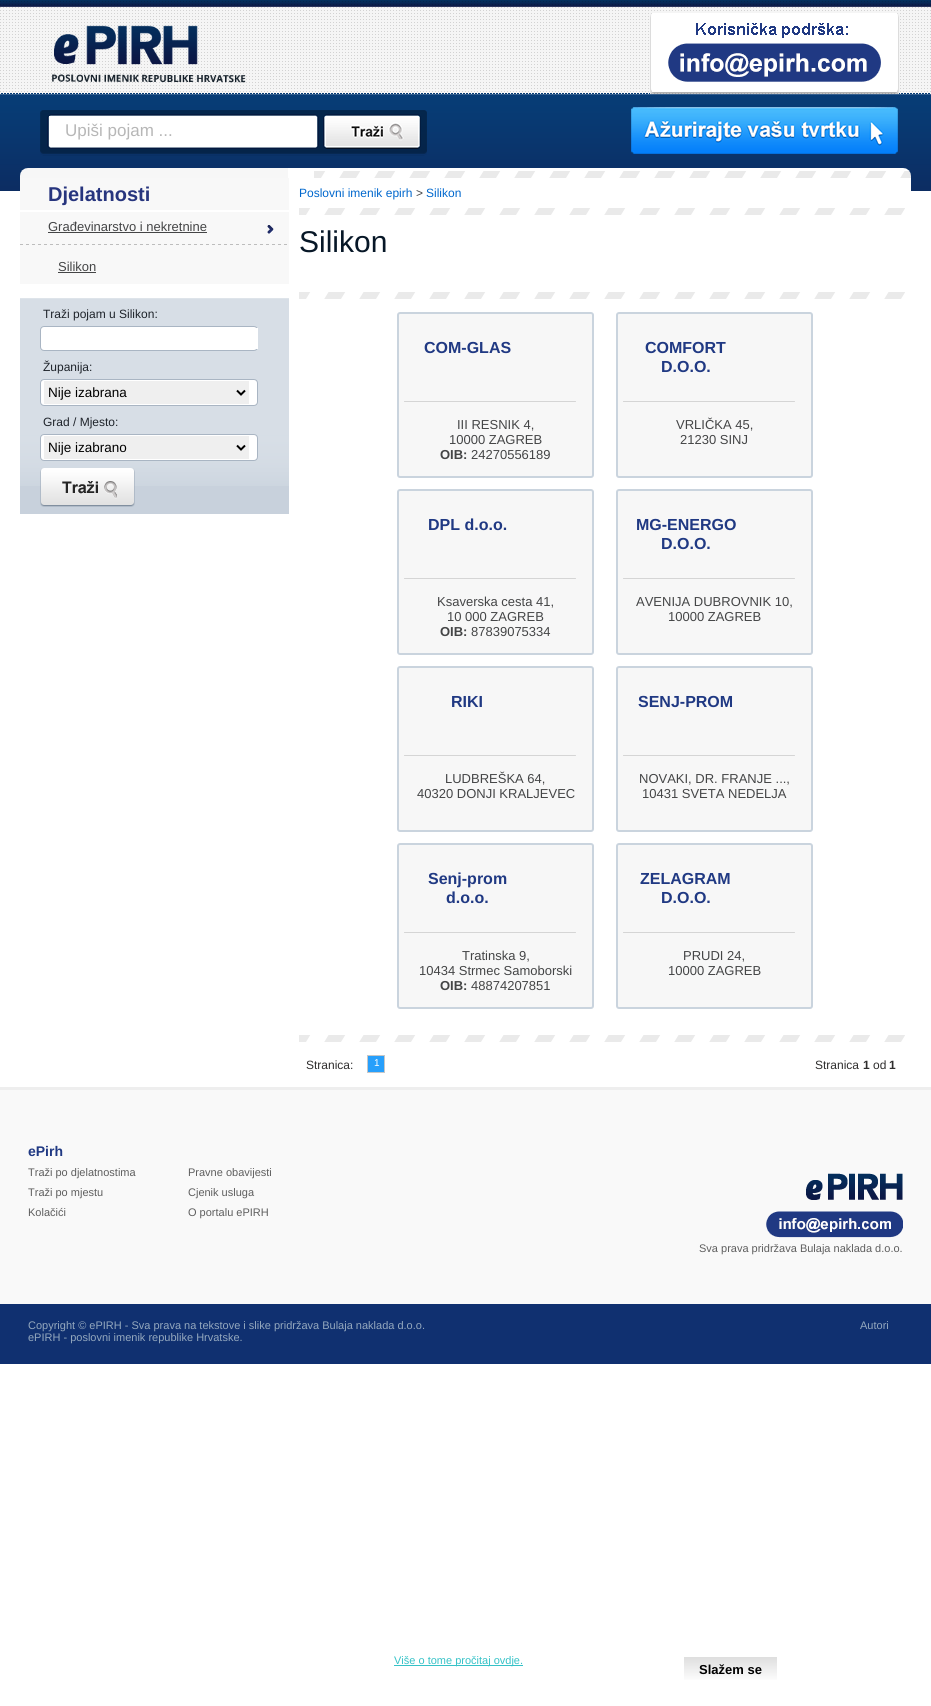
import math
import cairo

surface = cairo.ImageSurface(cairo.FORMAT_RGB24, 931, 1706)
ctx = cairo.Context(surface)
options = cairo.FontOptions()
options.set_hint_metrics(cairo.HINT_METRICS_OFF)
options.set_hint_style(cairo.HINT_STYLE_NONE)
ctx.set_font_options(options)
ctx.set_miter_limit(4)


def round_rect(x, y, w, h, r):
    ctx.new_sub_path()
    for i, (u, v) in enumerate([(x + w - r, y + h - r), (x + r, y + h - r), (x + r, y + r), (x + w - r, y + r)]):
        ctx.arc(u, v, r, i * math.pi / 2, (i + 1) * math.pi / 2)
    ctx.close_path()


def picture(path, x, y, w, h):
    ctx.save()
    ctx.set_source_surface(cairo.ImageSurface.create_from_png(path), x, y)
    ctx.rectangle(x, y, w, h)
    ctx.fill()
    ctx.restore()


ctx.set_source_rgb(1, 1, 1)
ctx.paint()
picture("img1.png", 0, 0, 931, 191)
picture("img2.png", 52, 25, 194, 58)
picture("img3.png", 650, 13, 249, 81)
picture("img4.png", 40, 110, 285, 46)
ctx.set_source_rgb(1, 1, 1)
ctx.rectangle(49, 116, 1, 1)
ctx.fill()
ctx.select_font_face("Liberation Sans")
ctx.set_font_size(17)
ctx.set_source_rgb(0.718, 0.718, 0.718)
ctx.move_to(65, 136)
ctx.show_text("Upiši pojam ...")
picture("img5.png", 325, 110, 102, 46)
picture("img6.png", 631, 107, 267, 47)
picture("img7.png", 20, 168, 891, 10)
ctx.set_source_rgb(1, 1, 1)
ctx.rectangle(20, 178, 891, 13)
ctx.fill()
ctx.set_source_rgb(0.969, 0.969, 0.969)
ctx.rectangle(20, 178, 269, 106)
ctx.fill()
ctx.set_source_rgb(1, 1, 1)
ctx.rectangle(20, 210, 277, 2)
ctx.fill()
ctx.select_font_face("Liberation Sans", cairo.FONT_SLANT_NORMAL, cairo.FONT_WEIGHT_BOLD)
ctx.set_font_size(20)
ctx.set_source_rgb(0.153, 0.208, 0.494)
ctx.move_to(48, 201)
ctx.show_text("Djelatnosti")
picture("img8.png", 267, 225, 7, 9)
ctx.select_font_face("Liberation Sans")
ctx.set_font_size(13)
ctx.set_source_rgb(0.267, 0.271, 0.275)
ctx.move_to(48, 231)
ctx.show_text("Građevinarstvo i nekretnine")
ctx.rectangle(48, 232, 159, 1)
ctx.fill()
picture("img9.png", 20, 244, 267, 1)
ctx.move_to(58, 271)
ctx.show_text("Silikon")
ctx.rectangle(58, 272, 38, 1)
ctx.fill()
ctx.set_source_rgb(0.784, 0.82, 0.863)
ctx.rectangle(20, 486, 269, 28)
ctx.fill()
picture("img10.png", 20, 298, 269, 188)
ctx.set_font_size(12)
ctx.set_source_rgb(0.118, 0.137, 0.165)
ctx.move_to(43, 318)
ctx.show_text("Traži pojam u Silikon:")
ctx.set_source_rgb(1, 1, 1)
round_rect(40.5, 326.5, 217, 24, 3.5)
ctx.fill_preserve()
ctx.set_source_rgb(0.663, 0.71, 0.765)
ctx.set_line_width(1)
ctx.stroke()
ctx.set_source_rgb(1, 1, 1)
ctx.rectangle(256, 328, 2, 21)
ctx.fill()
ctx.set_source_rgb(0.118, 0.137, 0.165)
ctx.move_to(43, 371)
ctx.show_text("Županija:")
ctx.set_source_rgb(1, 1, 1)
round_rect(40.5, 379.5, 217, 26, 3.5)
ctx.fill_preserve()
ctx.set_source_rgb(0.663, 0.71, 0.765)
ctx.stroke()
ctx.set_source_rgb(0.937, 0.937, 0.937)
ctx.rectangle(44, 381, 205, 23)
ctx.fill()
ctx.new_path()
ctx.move_to(237, 390.5)
ctx.line_to(241, 394.5)
ctx.line_to(245, 390.5)
ctx.set_source_rgb(0, 0, 0)
ctx.set_line_width(2)
ctx.stroke()
ctx.set_font_size(13.5)
ctx.move_to(48, 397)
ctx.show_text("Nije izabrana")
ctx.set_font_size(12)
ctx.set_source_rgb(0.118, 0.137, 0.165)
ctx.move_to(43, 426)
ctx.show_text("Grad / Mjesto:")
ctx.set_source_rgb(1, 1, 1)
round_rect(40.5, 434.5, 217, 26, 3.5)
ctx.fill_preserve()
ctx.set_source_rgb(0.663, 0.71, 0.765)
ctx.set_line_width(1)
ctx.stroke()
ctx.set_source_rgb(0.937, 0.937, 0.937)
ctx.rectangle(44, 436, 205, 23)
ctx.fill()
ctx.new_path()
ctx.move_to(237, 445.5)
ctx.line_to(241, 449.5)
ctx.line_to(245, 445.5)
ctx.set_source_rgb(0, 0, 0)
ctx.set_line_width(2)
ctx.stroke()
ctx.set_font_size(13.5)
ctx.move_to(48, 452)
ctx.show_text("Nije izabrano")
picture("img11.png", 40, 468, 95, 39)
picture("img12.png", 299, 208, 606, 7)
ctx.set_font_size(12)
ctx.set_source_rgb(0, 0.404, 0.804)
ctx.move_to(299, 197)
ctx.show_text("Poslovni imenik epirh")
ctx.set_source_rgb(0.267, 0.271, 0.275)
ctx.move_to(416, 197)
ctx.show_text(">")
ctx.set_source_rgb(0, 0.404, 0.804)
ctx.move_to(426, 197)
ctx.show_text("Silikon")
ctx.set_font_size(30)
ctx.set_source_rgb(0.031, 0.09, 0.153)
ctx.move_to(299, 252)
ctx.show_text("Silikon")
picture("img12.png", 299, 292, 606, 7)
picture("img13.png", 397, 312, 197, 166)
ctx.select_font_face("Liberation Sans", cairo.FONT_SLANT_NORMAL, cairo.FONT_WEIGHT_BOLD)
ctx.set_font_size(16)
ctx.set_source_rgb(0.125, 0.224, 0.514)
ctx.move_to(424, 353)
ctx.show_text("COM-GLAS")
ctx.select_font_face("Liberation Sans")
ctx.set_font_size(13)
ctx.set_source_rgb(0.267, 0.271, 0.275)
ctx.move_to(457, 429)
ctx.show_text("III RESNIK 4,")
ctx.move_to(449, 444)
ctx.show_text("10000 ZAGREB")
ctx.select_font_face("Liberation Sans", cairo.FONT_SLANT_NORMAL, cairo.FONT_WEIGHT_BOLD)
ctx.move_to(440, 459)
ctx.show_text("OIB:")
ctx.select_font_face("Liberation Sans")
ctx.move_to(471, 459)
ctx.show_text("24270556189")
picture("img13.png", 616, 312, 197, 166)
ctx.select_font_face("Liberation Sans", cairo.FONT_SLANT_NORMAL, cairo.FONT_WEIGHT_BOLD)
ctx.set_font_size(16)
ctx.set_source_rgb(0.125, 0.224, 0.514)
ctx.move_to(645, 353)
ctx.show_text("COMFORT")
ctx.move_to(661, 372)
ctx.show_text("D.O.O.")
ctx.select_font_face("Liberation Sans")
ctx.set_font_size(13)
ctx.set_source_rgb(0.267, 0.271, 0.275)
ctx.move_to(676, 429)
ctx.show_text("VRLIČKA 45,")
ctx.move_to(680, 444)
ctx.show_text("21230 SINJ")
picture("img13.png", 397, 489, 197, 166)
ctx.select_font_face("Liberation Sans", cairo.FONT_SLANT_NORMAL, cairo.FONT_WEIGHT_BOLD)
ctx.set_font_size(16)
ctx.set_source_rgb(0.125, 0.224, 0.514)
ctx.move_to(428, 530)
ctx.show_text("DPL d.o.o.")
ctx.select_font_face("Liberation Sans")
ctx.set_font_size(13)
ctx.set_source_rgb(0.267, 0.271, 0.275)
ctx.move_to(437, 606)
ctx.show_text("Ksaverska cesta 41,")
ctx.move_to(447, 621)
ctx.show_text("10 000 ZAGREB")
ctx.select_font_face("Liberation Sans", cairo.FONT_SLANT_NORMAL, cairo.FONT_WEIGHT_BOLD)
ctx.move_to(440, 636)
ctx.show_text("OIB:")
ctx.select_font_face("Liberation Sans")
ctx.move_to(471, 636)
ctx.show_text("87839075334")
picture("img13.png", 616, 489, 197, 166)
ctx.select_font_face("Liberation Sans", cairo.FONT_SLANT_NORMAL, cairo.FONT_WEIGHT_BOLD)
ctx.set_font_size(16)
ctx.set_source_rgb(0.125, 0.224, 0.514)
ctx.move_to(636, 530)
ctx.show_text("MG-ENERGO")
ctx.move_to(661, 549)
ctx.show_text("D.O.O.")
ctx.select_font_face("Liberation Sans")
ctx.set_font_size(13)
ctx.set_source_rgb(0.267, 0.271, 0.275)
ctx.move_to(636, 606)
ctx.show_text("AVENIJA DUBROVNIK 10,")
ctx.move_to(668, 621)
ctx.show_text("10000 ZAGREB")
picture("img13.png", 397, 666, 197, 166)
ctx.select_font_face("Liberation Sans", cairo.FONT_SLANT_NORMAL, cairo.FONT_WEIGHT_BOLD)
ctx.set_font_size(16)
ctx.set_source_rgb(0.125, 0.224, 0.514)
ctx.move_to(451, 707)
ctx.show_text("RIKI")
ctx.select_font_face("Liberation Sans")
ctx.set_font_size(13)
ctx.set_source_rgb(0.267, 0.271, 0.275)
ctx.move_to(445, 783)
ctx.show_text("LUDBREŠKA 64,")
ctx.move_to(417, 798)
ctx.show_text("40320 DONJI KRALJEVEC")
picture("img13.png", 616, 666, 197, 166)
ctx.select_font_face("Liberation Sans", cairo.FONT_SLANT_NORMAL, cairo.FONT_WEIGHT_BOLD)
ctx.set_font_size(16)
ctx.set_source_rgb(0.125, 0.224, 0.514)
ctx.move_to(638, 707)
ctx.show_text("SENJ-PROM")
ctx.select_font_face("Liberation Sans")
ctx.set_font_size(13)
ctx.set_source_rgb(0.267, 0.271, 0.275)
ctx.move_to(639, 783)
ctx.show_text("NOVAKI, DR. FRANJE ...,")
ctx.move_to(642, 798)
ctx.show_text("10431 SVETA NEDELJA")
picture("img13.png", 397, 843, 197, 166)
ctx.select_font_face("Liberation Sans", cairo.FONT_SLANT_NORMAL, cairo.FONT_WEIGHT_BOLD)
ctx.set_font_size(16)
ctx.set_source_rgb(0.125, 0.224, 0.514)
ctx.move_to(428, 884)
ctx.show_text("Senj-prom")
ctx.move_to(446, 903)
ctx.show_text("d.o.o.")
ctx.select_font_face("Liberation Sans")
ctx.set_font_size(13)
ctx.set_source_rgb(0.267, 0.271, 0.275)
ctx.move_to(462, 960)
ctx.show_text("Tratinska 9,")
ctx.move_to(419, 975)
ctx.show_text("10434 Strmec Samoborski")
ctx.select_font_face("Liberation Sans", cairo.FONT_SLANT_NORMAL, cairo.FONT_WEIGHT_BOLD)
ctx.move_to(440, 990)
ctx.show_text("OIB:")
ctx.select_font_face("Liberation Sans")
ctx.move_to(471, 990)
ctx.show_text("48874207851")
picture("img13.png", 616, 843, 197, 166)
ctx.select_font_face("Liberation Sans", cairo.FONT_SLANT_NORMAL, cairo.FONT_WEIGHT_BOLD)
ctx.set_font_size(16)
ctx.set_source_rgb(0.125, 0.224, 0.514)
ctx.move_to(640, 884)
ctx.show_text("ZELAGRAM")
ctx.move_to(661, 903)
ctx.show_text("D.O.O.")
ctx.select_font_face("Liberation Sans")
ctx.set_font_size(13)
ctx.set_source_rgb(0.267, 0.271, 0.275)
ctx.move_to(683, 960)
ctx.show_text("PRUDI 24,")
ctx.move_to(668, 975)
ctx.show_text("10000 ZAGREB")
picture("img12.png", 299, 1035, 606, 7)
ctx.set_font_size(12)
ctx.set_source_rgb(0.184, 0.18, 0.18)
ctx.move_to(306, 1069)
ctx.show_text("Stranica:")
ctx.set_source_rgb(0.153, 0.624, 0.984)
ctx.rectangle(367.5, 1055.5, 17, 17)
ctx.fill_preserve()
ctx.set_source_rgb(0.78, 0.78, 0.78)
ctx.set_line_width(1)
ctx.stroke()
ctx.set_font_size(10)
ctx.set_source_rgb(1, 1, 1)
ctx.move_to(374, 1066)
ctx.show_text("1")
ctx.set_font_size(12)
ctx.set_source_rgb(0.184, 0.18, 0.18)
ctx.move_to(815, 1069)
ctx.show_text("Stranica")
ctx.select_font_face("Liberation Sans", cairo.FONT_SLANT_NORMAL, cairo.FONT_WEIGHT_BOLD)
ctx.move_to(863, 1069)
ctx.show_text("1")
ctx.select_font_face("Liberation Sans")
ctx.move_to(873, 1069)
ctx.show_text("od")
ctx.select_font_face("Liberation Sans", cairo.FONT_SLANT_NORMAL, cairo.FONT_WEIGHT_BOLD)
ctx.move_to(889, 1069)
ctx.show_text("1")
ctx.set_source_rgb(0.976, 0.976, 0.976)
ctx.rectangle(0, 1090, 931, 214)
ctx.fill()
ctx.set_source_rgb(0.933, 0.933, 0.933)
ctx.rectangle(0, 1087, 931, 3)
ctx.fill()
ctx.set_font_size(14)
ctx.set_source_rgb(0.125, 0.224, 0.514)
ctx.move_to(28, 1156)
ctx.show_text("ePirh")
ctx.select_font_face("Liberation Sans")
ctx.set_font_size(11)
ctx.set_source_rgb(0.369, 0.369, 0.369)
ctx.move_to(28, 1176)
ctx.show_text("Traži po djelatnostima")
ctx.move_to(28, 1196)
ctx.show_text("Traži po mjestu")
ctx.move_to(28, 1216)
ctx.show_text("Kolačići")
ctx.move_to(188, 1176)
ctx.show_text("Pravne obavijesti")
ctx.move_to(188, 1196)
ctx.show_text("Cjenik usluga")
ctx.move_to(188, 1216)
ctx.show_text("O portalu ePIRH")
picture("img14.png", 766, 1173, 137, 65)
ctx.move_to(699, 1252)
ctx.show_text("Sva prava pridržava Bulaja naklada d.o.o.")
ctx.set_source_rgb(0.063, 0.188, 0.439)
ctx.rectangle(0, 1304, 931, 60)
ctx.fill()
ctx.set_source_rgb(0.58, 0.659, 0.745)
ctx.move_to(28, 1329)
ctx.show_text("Copyright © ePIRH - Sva prava na tekstove i slike pridržava Bulaja naklada d.o.o.")
ctx.move_to(28, 1341)
ctx.show_text("ePIRH - poslovni imenik republike Hrvatske.")
ctx.move_to(860, 1329)
ctx.show_text("Autori")
ctx.set_source_rgb(0.208, 0.761, 0.78)
ctx.rectangle(394, 1665, 129, 1)
ctx.fill()
ctx.move_to(394, 1664)
ctx.show_text("Više o tome pročitaj ovdje.")
gradient = cairo.LinearGradient(731, 1657, 731, 1682)
gradient.add_color_stop_rgba(0, 0.871, 0.871, 0.871, 1)
gradient.add_color_stop_rgba(1, 1, 1, 1, 1)
ctx.set_source(gradient)
ctx.rectangle(684, 1657, 93, 23)
ctx.fill()
ctx.select_font_face("Liberation Sans", cairo.FONT_SLANT_NORMAL, cairo.FONT_WEIGHT_BOLD)
ctx.set_font_size(13)
ctx.set_source_rgb(0, 0, 0)
ctx.move_to(699, 1674)
ctx.show_text("Slažem se")
surface.write_to_png("page.png")
